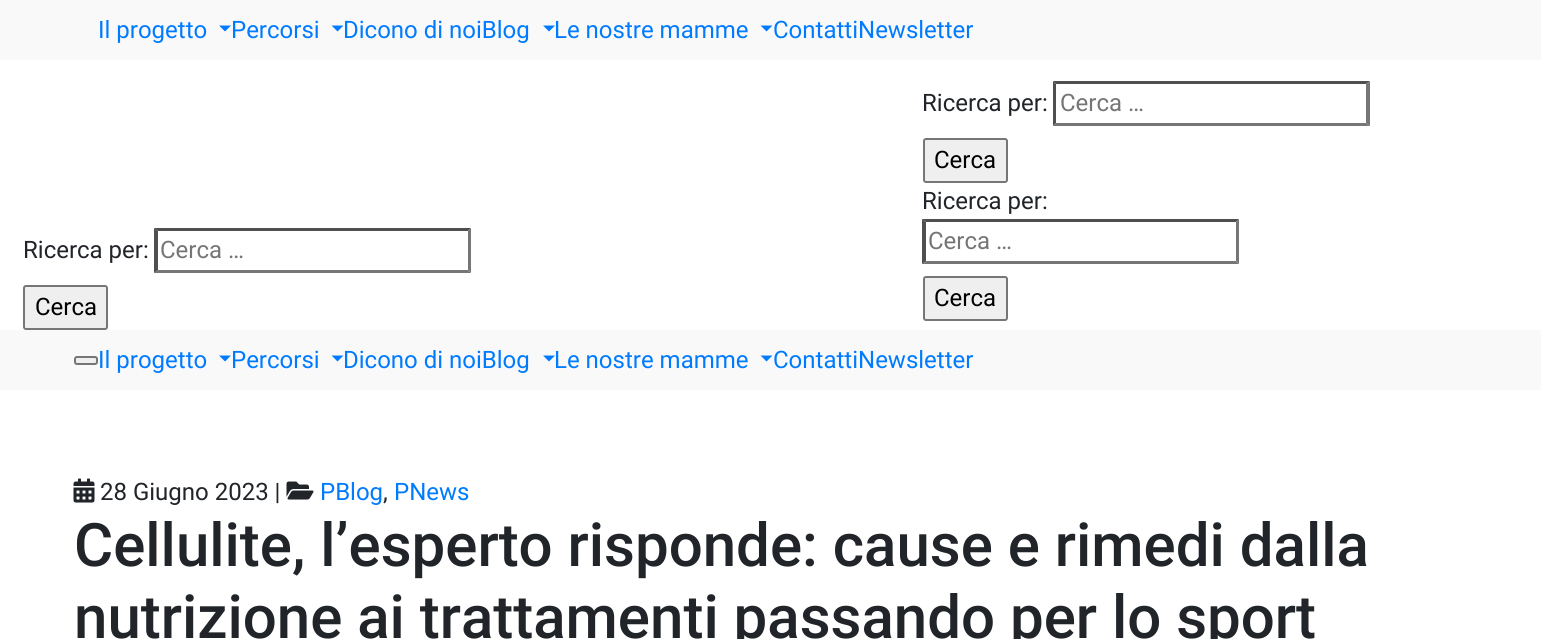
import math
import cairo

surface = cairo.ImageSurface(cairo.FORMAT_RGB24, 1541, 639)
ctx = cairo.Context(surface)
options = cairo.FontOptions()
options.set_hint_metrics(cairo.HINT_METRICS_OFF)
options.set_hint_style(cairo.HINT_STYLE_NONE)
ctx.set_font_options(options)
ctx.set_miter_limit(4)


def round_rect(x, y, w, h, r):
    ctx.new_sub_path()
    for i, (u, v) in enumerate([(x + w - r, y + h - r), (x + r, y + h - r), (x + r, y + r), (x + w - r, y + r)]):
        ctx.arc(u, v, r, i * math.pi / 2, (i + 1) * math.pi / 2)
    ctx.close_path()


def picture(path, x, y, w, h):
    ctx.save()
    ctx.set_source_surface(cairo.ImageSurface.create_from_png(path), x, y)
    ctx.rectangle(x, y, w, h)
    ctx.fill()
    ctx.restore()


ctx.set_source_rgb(1, 1, 1)
ctx.paint()
ctx.set_source_rgb(0.973, 0.976, 0.98)
ctx.rectangle(0, 0, 1541, 60)
ctx.fill()
ctx.select_font_face("Roboto")
ctx.set_font_size(24)
ctx.set_source_rgb(0, 0.482, 1)
ctx.move_to(98, 38)
ctx.show_text("Il progetto")
ctx.new_path()
ctx.move_to(219, 25.5)
ctx.line_to(231, 25.5)
ctx.line_to(225, 31.5)
ctx.close_path()
ctx.fill()
ctx.move_to(231, 38)
ctx.show_text("Percorsi")
ctx.new_path()
ctx.move_to(331.5, 25.5)
ctx.line_to(343.5, 25.5)
ctx.line_to(337.5, 31.5)
ctx.close_path()
ctx.fill()
ctx.move_to(343, 38)
ctx.show_text("Dicono di noiBlog")
ctx.new_path()
ctx.move_to(543, 25.5)
ctx.line_to(555, 25.5)
ctx.line_to(549, 31.5)
ctx.close_path()
ctx.fill()
ctx.move_to(554, 38)
ctx.show_text("Le nostre mamme")
ctx.new_path()
ctx.move_to(760.5, 25.5)
ctx.line_to(772.5, 25.5)
ctx.line_to(766.5, 31.5)
ctx.close_path()
ctx.fill()
ctx.move_to(773, 38)
ctx.show_text("ContattiNewsletter")
ctx.set_source_rgb(0.129, 0.145, 0.161)
ctx.move_to(922, 111)
ctx.show_text("Ricerca per:")
ctx.set_source_rgb(0.31, 0.31, 0.31)
ctx.new_path()
ctx.move_to(1053, 81)
ctx.line_to(1370, 81)
ctx.line_to(1366, 84)
ctx.line_to(1056, 84)
ctx.close_path()
ctx.fill()
ctx.set_source_rgb(0.463, 0.463, 0.463)
ctx.new_path()
ctx.move_to(1370, 81)
ctx.line_to(1370, 126)
ctx.line_to(1366, 123)
ctx.line_to(1366, 84)
ctx.close_path()
ctx.fill()
ctx.new_path()
ctx.move_to(1370, 126)
ctx.line_to(1053, 126)
ctx.line_to(1056, 123)
ctx.line_to(1366, 123)
ctx.close_path()
ctx.fill()
ctx.set_source_rgb(0.31, 0.31, 0.31)
ctx.new_path()
ctx.move_to(1053, 126)
ctx.line_to(1053, 81)
ctx.line_to(1056, 84)
ctx.line_to(1056, 123)
ctx.close_path()
ctx.fill()
ctx.set_source_rgb(0.459, 0.459, 0.459)
ctx.move_to(1060, 111)
ctx.show_text("Cerca …")
ctx.set_source_rgb(0.937, 0.937, 0.937)
round_rect(924, 139, 83, 43, 2)
ctx.fill_preserve()
ctx.set_source_rgb(0.463, 0.463, 0.463)
ctx.stroke()
ctx.set_source_rgb(0, 0, 0)
ctx.move_to(934, 168)
ctx.show_text("Cerca")
ctx.set_source_rgb(0.129, 0.145, 0.161)
ctx.move_to(23, 258)
ctx.show_text("Ricerca per:")
ctx.set_source_rgb(0.31, 0.31, 0.31)
ctx.new_path()
ctx.move_to(154, 228)
ctx.line_to(471, 228)
ctx.line_to(468, 231)
ctx.line_to(158, 231)
ctx.close_path()
ctx.fill()
ctx.set_source_rgb(0.463, 0.463, 0.463)
ctx.new_path()
ctx.move_to(471, 228)
ctx.line_to(471, 273)
ctx.line_to(468, 270)
ctx.line_to(468, 231)
ctx.close_path()
ctx.fill()
ctx.new_path()
ctx.move_to(471, 273)
ctx.line_to(154, 273)
ctx.line_to(158, 270)
ctx.line_to(468, 270)
ctx.close_path()
ctx.fill()
ctx.set_source_rgb(0.31, 0.31, 0.31)
ctx.new_path()
ctx.move_to(154, 273)
ctx.line_to(154, 228)
ctx.line_to(158, 231)
ctx.line_to(158, 270)
ctx.close_path()
ctx.fill()
ctx.set_source_rgb(0.459, 0.459, 0.459)
ctx.move_to(160, 258)
ctx.show_text("Cerca …")
ctx.set_source_rgb(0.937, 0.937, 0.937)
round_rect(24, 286, 83, 43, 2)
ctx.fill_preserve()
ctx.set_source_rgb(0.463, 0.463, 0.463)
ctx.stroke()
ctx.set_source_rgb(0, 0, 0)
ctx.move_to(35, 315)
ctx.show_text("Cerca")
ctx.set_source_rgb(0.129, 0.145, 0.161)
ctx.move_to(922, 209)
ctx.show_text("Ricerca per:")
ctx.set_source_rgb(0.31, 0.31, 0.31)
ctx.new_path()
ctx.move_to(922, 219)
ctx.line_to(1239, 219)
ctx.line_to(1236, 222)
ctx.line_to(926, 222)
ctx.close_path()
ctx.fill()
ctx.set_source_rgb(0.463, 0.463, 0.463)
ctx.new_path()
ctx.move_to(1239, 219)
ctx.line_to(1239, 264)
ctx.line_to(1236, 261)
ctx.line_to(1236, 222)
ctx.close_path()
ctx.fill()
ctx.new_path()
ctx.move_to(1239, 264)
ctx.line_to(922, 264)
ctx.line_to(926, 261)
ctx.line_to(1236, 261)
ctx.close_path()
ctx.fill()
ctx.set_source_rgb(0.31, 0.31, 0.31)
ctx.new_path()
ctx.move_to(922, 264)
ctx.line_to(922, 219)
ctx.line_to(926, 222)
ctx.line_to(926, 261)
ctx.close_path()
ctx.fill()
ctx.set_source_rgb(0.459, 0.459, 0.459)
ctx.move_to(928, 249)
ctx.show_text("Cerca …")
ctx.set_source_rgb(0.937, 0.937, 0.937)
round_rect(924, 277, 83, 43, 2)
ctx.fill_preserve()
ctx.set_source_rgb(0.463, 0.463, 0.463)
ctx.stroke()
ctx.set_source_rgb(0, 0, 0)
ctx.move_to(934, 306)
ctx.show_text("Cerca")
ctx.set_source_rgb(0.973, 0.976, 0.98)
ctx.rectangle(0, 330, 1541, 60)
ctx.fill()
ctx.set_source_rgb(0.937, 0.937, 0.937)
round_rect(75, 357, 22, 7, 2)
ctx.fill_preserve()
ctx.set_source_rgb(0.463, 0.463, 0.463)
ctx.stroke()
ctx.set_source_rgb(0, 0.482, 1)
ctx.move_to(98, 368)
ctx.show_text("Il progetto")
ctx.new_path()
ctx.move_to(219, 355.5)
ctx.line_to(231, 355.5)
ctx.line_to(225, 361.5)
ctx.close_path()
ctx.fill()
ctx.move_to(231, 368)
ctx.show_text("Percorsi")
ctx.new_path()
ctx.move_to(331.5, 355.5)
ctx.line_to(343.5, 355.5)
ctx.line_to(337.5, 361.5)
ctx.close_path()
ctx.fill()
ctx.move_to(343, 368)
ctx.show_text("Dicono di noiBlog")
ctx.new_path()
ctx.move_to(543, 355.5)
ctx.line_to(555, 355.5)
ctx.line_to(549, 361.5)
ctx.close_path()
ctx.fill()
ctx.move_to(554, 368)
ctx.show_text("Le nostre mamme")
ctx.new_path()
ctx.move_to(760.5, 355.5)
ctx.line_to(772.5, 355.5)
ctx.line_to(766.5, 361.5)
ctx.close_path()
ctx.fill()
ctx.move_to(773, 368)
ctx.show_text("ContattiNewsletter")
picture("img1.png", 73, 478, 22, 25)
ctx.set_source_rgb(0.129, 0.145, 0.161)
ctx.move_to(100, 500)
ctx.show_text("28 Giugno 2023 |")
picture("img2.png", 286, 481, 28, 19)
ctx.set_source_rgb(0, 0.482, 1)
ctx.move_to(320, 500)
ctx.show_text("PBlog")
ctx.set_source_rgb(0.129, 0.145, 0.161)
ctx.move_to(383, 500)
ctx.show_text(",")
ctx.set_source_rgb(0, 0.482, 1)
ctx.move_to(394, 500)
ctx.show_text("PNews")
ctx.select_font_face("Roboto Medium")
ctx.set_font_size(60)
ctx.set_source_rgb(0.129, 0.145, 0.161)
ctx.move_to(74, 566)
ctx.show_text("Cellulite, l’esperto risponde: cause e rimedi dalla")
ctx.move_to(74, 638)
ctx.show_text("nutrizione ai trattamenti passando per lo sport")
surface.write_to_png("page.png")
